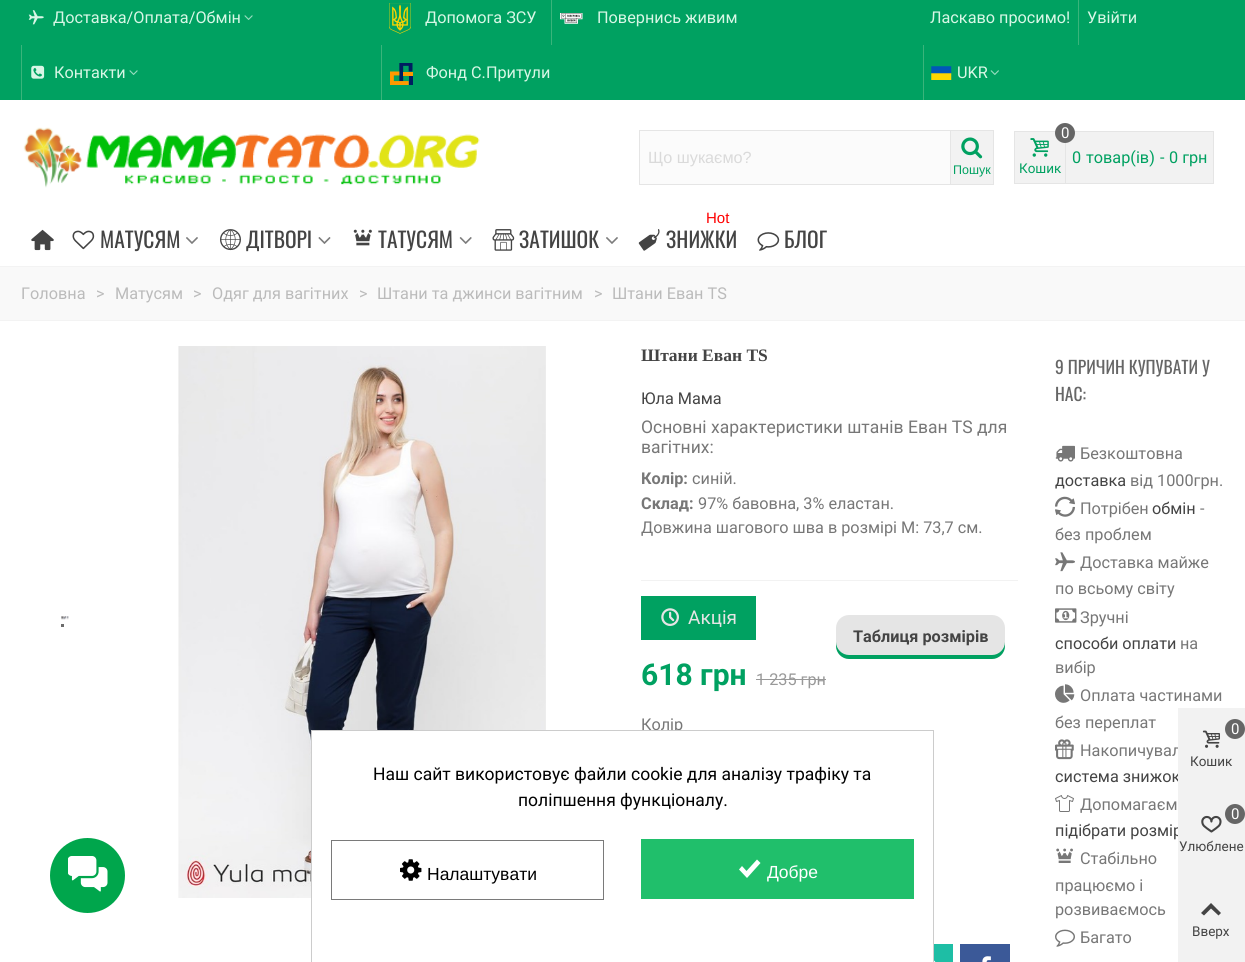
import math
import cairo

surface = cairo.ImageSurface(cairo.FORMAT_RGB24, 1245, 962)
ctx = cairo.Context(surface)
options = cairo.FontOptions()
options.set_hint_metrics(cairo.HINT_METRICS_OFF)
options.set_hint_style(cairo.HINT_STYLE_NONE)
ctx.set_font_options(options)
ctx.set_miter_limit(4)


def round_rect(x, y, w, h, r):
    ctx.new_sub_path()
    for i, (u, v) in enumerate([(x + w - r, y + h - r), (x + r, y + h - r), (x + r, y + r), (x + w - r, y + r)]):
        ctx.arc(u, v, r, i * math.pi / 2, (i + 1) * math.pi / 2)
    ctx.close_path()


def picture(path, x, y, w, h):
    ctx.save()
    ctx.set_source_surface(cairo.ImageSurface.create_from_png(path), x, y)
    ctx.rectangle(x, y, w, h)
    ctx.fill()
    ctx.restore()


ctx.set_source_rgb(1, 1, 1)
ctx.paint()
ctx.set_source_rgb(0, 0.631, 0.38)
ctx.rectangle(0, 0, 1245, 100)
ctx.fill()
picture("img1.png", 28, 10, 16, 15)
ctx.select_font_face("Roboto")
ctx.set_font_size(16.25)
ctx.set_source_rgb(0.847, 0.965, 0.902)
ctx.move_to(53, 23)
ctx.show_text("Доставка/Оплата/Обмін")
picture("img2.png", 244, 15, 9, 5)
ctx.set_source_rgb(0.227, 0.706, 0.482)
ctx.rectangle(21, 45, 1, 55)
ctx.fill()
picture("img3.png", 31, 65, 14, 14)
ctx.set_source_rgb(0.847, 0.965, 0.902)
ctx.move_to(54, 78)
ctx.show_text("Контакти")
picture("img2.png", 129, 70, 9, 5)
picture("img4.png", 389, 3, 22, 31)
ctx.move_to(425, 23)
ctx.show_text("Допомога ЗСУ")
ctx.set_source_rgb(0.227, 0.706, 0.482)
ctx.rectangle(551, 0, 1, 45)
ctx.fill()
picture("img5.png", 560, 13, 23, 11)
ctx.set_source_rgb(0.847, 0.965, 0.902)
ctx.move_to(597, 23)
ctx.show_text("Повернись живим")
ctx.set_source_rgb(0.227, 0.706, 0.482)
ctx.rectangle(381, 45, 1, 55)
ctx.fill()
picture("img6.png", 390, 63, 23, 22)
ctx.set_source_rgb(0.847, 0.965, 0.902)
ctx.move_to(426, 78)
ctx.show_text("Фонд С.Притули")
ctx.move_to(930, 23)
ctx.show_text("Ласкаво просимо!")
ctx.set_source_rgb(0.227, 0.706, 0.482)
ctx.rectangle(1078, 0, 1, 45)
ctx.fill()
ctx.set_source_rgb(0.847, 0.965, 0.902)
ctx.move_to(1087, 23)
ctx.show_text("Увійти")
ctx.set_source_rgb(0.227, 0.706, 0.482)
ctx.rectangle(923, 45, 1, 55)
ctx.fill()
picture("img7.png", 931, 66, 21, 14)
ctx.set_source_rgb(0.847, 0.965, 0.902)
ctx.move_to(957, 78)
ctx.show_text("UKR")
picture("img8.png", 990, 70, 9, 5)
picture("img9.png", 23, 127, 457, 61)
ctx.rectangle(639.5, 130.5, 354, 54)
ctx.set_source_rgb(0.898, 0.898, 0.898)
ctx.set_line_width(1)
ctx.stroke()
ctx.set_source_rgb(0.984, 0.984, 0.984)
ctx.rectangle(640, 131, 310, 53)
ctx.fill()
ctx.select_font_face("Liberation Sans")
ctx.set_source_rgb(0.855, 0.855, 0.855)
ctx.move_to(648, 163)
ctx.show_text("Що шукаємо?")
ctx.set_source_rgb(0.949, 0.949, 0.949)
ctx.rectangle(951, 131, 42, 53)
ctx.fill()
ctx.set_source_rgb(0.898, 0.898, 0.898)
ctx.rectangle(950, 131, 1, 53)
ctx.fill()
picture("img10.png", 961, 137, 22, 22)
ctx.set_font_size(12.5)
ctx.set_source_rgb(0, 0.631, 0.38)
ctx.move_to(953, 174)
ctx.show_text("Пошук")
ctx.set_source_rgb(0.949, 0.949, 0.949)
ctx.rectangle(1014.5, 131.5, 51, 52)
ctx.fill_preserve()
ctx.set_source_rgb(0.898, 0.898, 0.898)
ctx.stroke()
ctx.set_source_rgb(0.949, 0.949, 0.949)
ctx.rectangle(1066, 132, 147, 51)
ctx.fill()
ctx.set_source_rgb(0.898, 0.898, 0.898)
ctx.rectangle(1066, 131, 148, 1)
ctx.fill()
ctx.set_source_rgb(0.4, 0.4, 0.4)
ctx.arc(1065, 133, 10, 0, 2 * math.pi)
ctx.fill()
ctx.select_font_face("Roboto")
ctx.set_font_size(15)
ctx.set_source_rgb(1, 1, 1)
ctx.move_to(1061, 138)
ctx.show_text("0")
picture("img11.png", 1030, 138, 19, 19)
ctx.set_font_size(13.5)
ctx.set_source_rgb(0, 0.631, 0.38)
ctx.move_to(1019, 173)
ctx.show_text("Кошик")
ctx.set_source_rgb(0.898, 0.898, 0.898)
ctx.rectangle(1066, 183, 98, 1)
ctx.fill()
ctx.set_font_size(16.25)
ctx.set_source_rgb(0, 0.631, 0.38)
ctx.move_to(1072, 163)
ctx.show_text("0")
ctx.move_to(1086, 163)
ctx.show_text("товар(ів)")
ctx.move_to(1160, 163)
ctx.show_text("-")
ctx.set_source_rgb(0.898, 0.898, 0.898)
ctx.rectangle(1213, 131, 1, 53)
ctx.fill()
ctx.rectangle(1164, 183, 50, 1)
ctx.fill()
ctx.set_source_rgb(0, 0.631, 0.38)
ctx.move_to(1169, 163)
ctx.show_text("0 грн")
picture("img12.png", 31, 229, 23, 22)
picture("img13.png", 72, 230, 23, 20)
ctx.select_font_face("Oswald")
ctx.set_font_size(21.5)
ctx.set_source_rgb(0.267, 0.267, 0.267)
ctx.move_to(100, 248)
ctx.show_text("МАТУСЯМ")
picture("img14.png", 186, 237, 12, 7)
picture("img15.png", 220, 229, 21, 22)
ctx.move_to(246, 248)
ctx.show_text("ДІТВОРІ")
picture("img16.png", 318, 237, 13, 7)
picture("img17.png", 353, 229, 19, 17)
ctx.move_to(378, 248)
ctx.show_text("ТАТУСЯМ")
picture("img18.png", 459, 237, 13, 7)
picture("img19.png", 492, 229, 23, 22)
ctx.move_to(519, 248)
ctx.show_text("ЗАТИШОК")
picture("img14.png", 606, 237, 12, 7)
ctx.select_font_face("Liberation Sans")
ctx.set_font_size(15)
ctx.set_source_rgb(1, 0, 0)
ctx.move_to(706, 223)
ctx.show_text("Hot")
picture("img20.png", 638, 229, 22, 22)
ctx.select_font_face("Oswald")
ctx.set_font_size(21.5)
ctx.set_source_rgb(0.267, 0.267, 0.267)
ctx.move_to(666, 248)
ctx.show_text("ЗНИЖКИ")
picture("img21.png", 757, 232, 23, 19)
ctx.move_to(784, 248)
ctx.show_text("БЛОГ")
ctx.set_source_rgb(0.976, 0.976, 0.976)
ctx.rectangle(0, 267, 1245, 53)
ctx.fill()
ctx.set_source_rgb(0.953, 0.953, 0.953)
ctx.rectangle(0, 266, 1245, 1)
ctx.fill()
ctx.rectangle(0, 320, 1245, 1)
ctx.fill()
ctx.select_font_face("Roboto")
ctx.set_font_size(16.25)
ctx.set_source_rgb(0.733, 0.733, 0.733)
ctx.move_to(21, 299)
ctx.show_text("Головна")
ctx.move_to(96, 299)
ctx.show_text(">")
ctx.move_to(115, 299)
ctx.show_text("Матусям")
ctx.move_to(193, 299)
ctx.show_text(">")
ctx.move_to(212, 299)
ctx.show_text("Одяг для вагітних")
ctx.move_to(359, 299)
ctx.show_text(">")
ctx.move_to(377, 299)
ctx.show_text("Штани та джинси вагітним")
ctx.move_to(594, 299)
ctx.show_text(">")
ctx.move_to(612, 299)
ctx.show_text("Штани Еван TS")
ctx.set_source_rgb(0.424, 0.424, 0.424)
ctx.rectangle(61, 624, 3, 3)
ctx.fill()
picture("img22.png", 61, 616, 3, 4)
picture("img23.png", 63, 616, 2, 4)
picture("img24.png", 65, 616, 2, 4)
picture("img25.png", 66, 616, 3, 4)
picture("img26.png", 178, 346, 368, 552)
ctx.select_font_face("Liberation Serif", cairo.FONT_SLANT_NORMAL, cairo.FONT_WEIGHT_BOLD)
ctx.set_font_size(17.5)
ctx.set_source_rgb(0.267, 0.267, 0.267)
ctx.move_to(641, 361)
ctx.show_text("Штани Еван TS")
ctx.select_font_face("Roboto")
ctx.set_font_size(16.25)
ctx.move_to(641, 404)
ctx.show_text("Юла Мама")
ctx.set_font_size(17.5)
ctx.set_source_rgb(0.467, 0.467, 0.467)
ctx.move_to(641, 433)
ctx.show_text("Основні характеристики штанів Еван TS для")
ctx.move_to(641, 453)
ctx.show_text("вагітних:")
ctx.select_font_face("Roboto", cairo.FONT_SLANT_NORMAL, cairo.FONT_WEIGHT_BOLD)
ctx.set_font_size(16.25)
ctx.move_to(641, 484)
ctx.show_text("Колір:")
ctx.select_font_face("Roboto")
ctx.move_to(692, 484)
ctx.show_text("синій.")
ctx.select_font_face("Roboto", cairo.FONT_SLANT_NORMAL, cairo.FONT_WEIGHT_BOLD)
ctx.move_to(641, 509)
ctx.show_text("Склад:")
ctx.select_font_face("Roboto")
ctx.move_to(698, 509)
ctx.show_text("97% бавовна, 3% еластан.")
ctx.move_to(641, 533)
ctx.show_text("Довжина шагового шва в розмірі М: 73,7 см.")
ctx.set_source_rgb(0.949, 0.949, 0.949)
ctx.rectangle(641, 580, 377, 1)
ctx.fill()
ctx.set_source_rgb(0, 0.631, 0.38)
ctx.rectangle(641, 596, 115, 44)
ctx.fill()
picture("img27.png", 661, 608, 18, 18)
ctx.set_font_size(19)
ctx.set_source_rgb(0.898, 0.898, 0.898)
ctx.move_to(688, 624)
ctx.show_text("Акція")
ctx.select_font_face("Roboto", cairo.FONT_SLANT_NORMAL, cairo.FONT_WEIGHT_BOLD)
ctx.set_font_size(30)
ctx.set_source_rgb(0, 0.631, 0.38)
ctx.move_to(641, 685)
ctx.show_text("618 грн")
ctx.select_font_face("Roboto")
ctx.set_font_size(16.25)
ctx.set_source_rgb(0.6, 0.6, 0.6)
ctx.move_to(756, 685)
ctx.show_text("1 235 грн")
ctx.rectangle(756, 679, 70, 1)
ctx.fill()
ctx.set_source_rgb(0.898, 0.898, 0.898)
round_rect(836, 615, 169, 44, 13)
ctx.fill()
ctx.set_source_rgb(0, 0.631, 0.38)
ctx.new_path()
ctx.move_to(836, 642)
ctx.line_to(836, 646)
ctx.curve_to(836, 653, 842, 659, 849, 659)
ctx.line_to(992, 659)
ctx.curve_to(999, 659, 1005, 653, 1005, 646)
ctx.line_to(1005, 642)
ctx.curve_to(1005, 649, 999, 655, 992, 655)
ctx.line_to(849, 655)
ctx.curve_to(842, 655, 836, 649, 836, 642)
ctx.close_path()
ctx.fill()
ctx.select_font_face("Roboto", cairo.FONT_SLANT_NORMAL, cairo.FONT_WEIGHT_BOLD)
ctx.set_source_rgb(0.267, 0.267, 0.267)
ctx.move_to(853, 642)
ctx.show_text("Таблиця розмірів")
ctx.select_font_face("Roboto")
ctx.set_source_rgb(0.467, 0.467, 0.467)
ctx.move_to(641, 730)
ctx.show_text("Колір")
ctx.set_source_rgb(0.118, 0.745, 0.647)
ctx.rectangle(934, 944, 19, 18)
ctx.fill()
picture("img28.png", 934, 960, 2, 2)
ctx.set_source_rgb(0.231, 0.349, 0.596)
ctx.rectangle(960, 944, 50, 18)
ctx.fill()
picture("img29.png", 982, 956, 9, 6)
ctx.select_font_face("Oswald")
ctx.set_font_size(17.5)
ctx.set_source_rgb(0.4, 0.4, 0.4)
ctx.move_to(1055, 374)
ctx.show_text("9 ПРИЧИН КУПУВАТИ У")
ctx.move_to(1055, 401)
ctx.show_text("НАС:")
picture("img30.png", 1055, 445, 20, 17)
ctx.select_font_face("Roboto")
ctx.set_font_size(16.25)
ctx.set_source_rgb(0.467, 0.467, 0.467)
ctx.move_to(1080, 459)
ctx.show_text("Безкоштовна")
ctx.set_source_rgb(0.267, 0.267, 0.267)
ctx.move_to(1055, 486)
ctx.show_text("доставка")
ctx.set_source_rgb(0.467, 0.467, 0.467)
ctx.move_to(1130, 486)
ctx.show_text("від 1000грн.")
picture("img31.png", 1055, 496, 20, 21)
ctx.move_to(1080, 514)
ctx.show_text("Потрібен")
ctx.set_source_rgb(0.267, 0.267, 0.267)
ctx.move_to(1152, 514)
ctx.show_text("обмін")
ctx.set_source_rgb(0.467, 0.467, 0.467)
ctx.move_to(1200, 514)
ctx.show_text("-")
ctx.move_to(1055, 540)
ctx.show_text("без проблем")
picture("img32.png", 1055, 552, 20, 20)
ctx.move_to(1080, 568)
ctx.show_text("Доставка майже")
ctx.move_to(1055, 594)
ctx.show_text("по всьому світу")
picture("img33.png", 1055, 608, 22, 15)
ctx.move_to(1080, 623)
ctx.show_text("Зручні")
ctx.set_source_rgb(0.267, 0.267, 0.267)
ctx.move_to(1055, 649)
ctx.show_text("способи оплати")
ctx.set_source_rgb(0.467, 0.467, 0.467)
ctx.move_to(1180, 649)
ctx.show_text("на")
ctx.move_to(1055, 673)
ctx.show_text("вибір")
picture("img34.png", 1055, 684, 20, 19)
ctx.move_to(1080, 701)
ctx.show_text("Оплата частинами")
ctx.move_to(1055, 728)
ctx.show_text("без переплат")
picture("img35.png", 1055, 739, 19, 21)
ctx.move_to(1080, 756)
ctx.show_text("Накопичувал")
ctx.set_source_rgb(0.267, 0.267, 0.267)
ctx.move_to(1055, 782)
ctx.show_text("система знижок")
picture("img36.png", 1055, 795, 19, 17)
ctx.set_source_rgb(0.467, 0.467, 0.467)
ctx.move_to(1080, 810)
ctx.show_text("Допомагаєм")
ctx.set_source_rgb(0.267, 0.267, 0.267)
ctx.move_to(1055, 836)
ctx.show_text("підібрати розмір")
picture("img37.png", 1056, 848, 17, 15)
ctx.set_source_rgb(0.467, 0.467, 0.467)
ctx.move_to(1080, 864)
ctx.show_text("Стабільно")
ctx.move_to(1055, 891)
ctx.show_text("працюємо і")
ctx.move_to(1055, 915)
ctx.show_text("розвиваємось")
picture("img38.png", 1055, 929, 20, 18)
ctx.move_to(1080, 943)
ctx.show_text("Багато")
ctx.set_source_rgb(0.949, 0.949, 0.949)
ctx.rectangle(1178, 708, 67, 254)
ctx.fill()
picture("img39.png", 1202, 730, 18, 18)
ctx.set_source_rgb(0.4, 0.4, 0.4)
ctx.arc(1235, 729, 10, 0, 2 * math.pi)
ctx.fill()
ctx.set_font_size(15)
ctx.set_source_rgb(1, 1, 1)
ctx.move_to(1231, 734)
ctx.show_text("0")
ctx.set_font_size(13.5)
ctx.set_source_rgb(0.267, 0.267, 0.267)
ctx.move_to(1190, 766)
ctx.show_text("Кошик")
picture("img40.png", 1201, 815, 21, 18)
ctx.set_source_rgb(0.4, 0.4, 0.4)
ctx.arc(1235, 814, 10, 0, 2 * math.pi)
ctx.fill()
ctx.set_font_size(15)
ctx.set_source_rgb(1, 1, 1)
ctx.move_to(1231, 819)
ctx.show_text("0")
ctx.set_font_size(13.5)
ctx.set_source_rgb(0.267, 0.267, 0.267)
ctx.move_to(1179, 851)
ctx.show_text("Улюблене")
ctx.new_path()
ctx.move_to(1201, 913)
ctx.line_to(1211, 903)
ctx.line_to(1221, 913)
ctx.line_to(1218.5, 915.5)
ctx.line_to(1211, 908.5)
ctx.line_to(1204, 915.5)
ctx.close_path()
ctx.fill()
ctx.move_to(1192, 936)
ctx.show_text("Вверх")
ctx.set_source_rgb(0, 0.651, 0.298)
ctx.new_path()
ctx.arc(87.5, 875.5, 37.5, 0, 2 * math.pi)
ctx.fill()
picture("img41.png", 68, 856, 40, 36)
ctx.set_source_rgb(1, 1, 1)
ctx.rectangle(312, 731, 365, 167)
ctx.fill()
ctx.rectangle(311.5, 730.5, 622, 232)
ctx.set_source_rgb(0.8, 0.8, 0.8)
ctx.stroke()
ctx.set_font_size(17.5)
ctx.set_source_rgb(0, 0, 0)
ctx.move_to(373, 780)
ctx.show_text("Наш сайт використовує файли cookie для аналізу трафіку та")
ctx.move_to(518, 806)
ctx.show_text("поліпшення функціоналу.")
ctx.rectangle(331.5, 840.5, 272, 59)
ctx.set_source_rgb(0.478, 0.478, 0.478)
ctx.stroke()
picture("img42.png", 400, 859, 22, 22)
ctx.select_font_face("Liberation Sans")
ctx.set_source_rgb(0, 0, 0)
ctx.move_to(427, 880)
ctx.show_text("Налаштувати")
ctx.set_source_rgb(0.125, 0.749, 0.42)
ctx.rectangle(641, 839, 273, 60)
ctx.fill()
ctx.set_source_rgb(1, 1, 1)
ctx.new_path()
ctx.move_to(760.5, 863)
ctx.line_to(747, 878)
ctx.line_to(739, 869.5)
ctx.line_to(742, 866)
ctx.line_to(746.5, 871)
ctx.line_to(757, 859.5)
ctx.close_path()
ctx.fill()
ctx.move_to(767, 878)
ctx.show_text("Добре")
surface.write_to_png("page.png")
